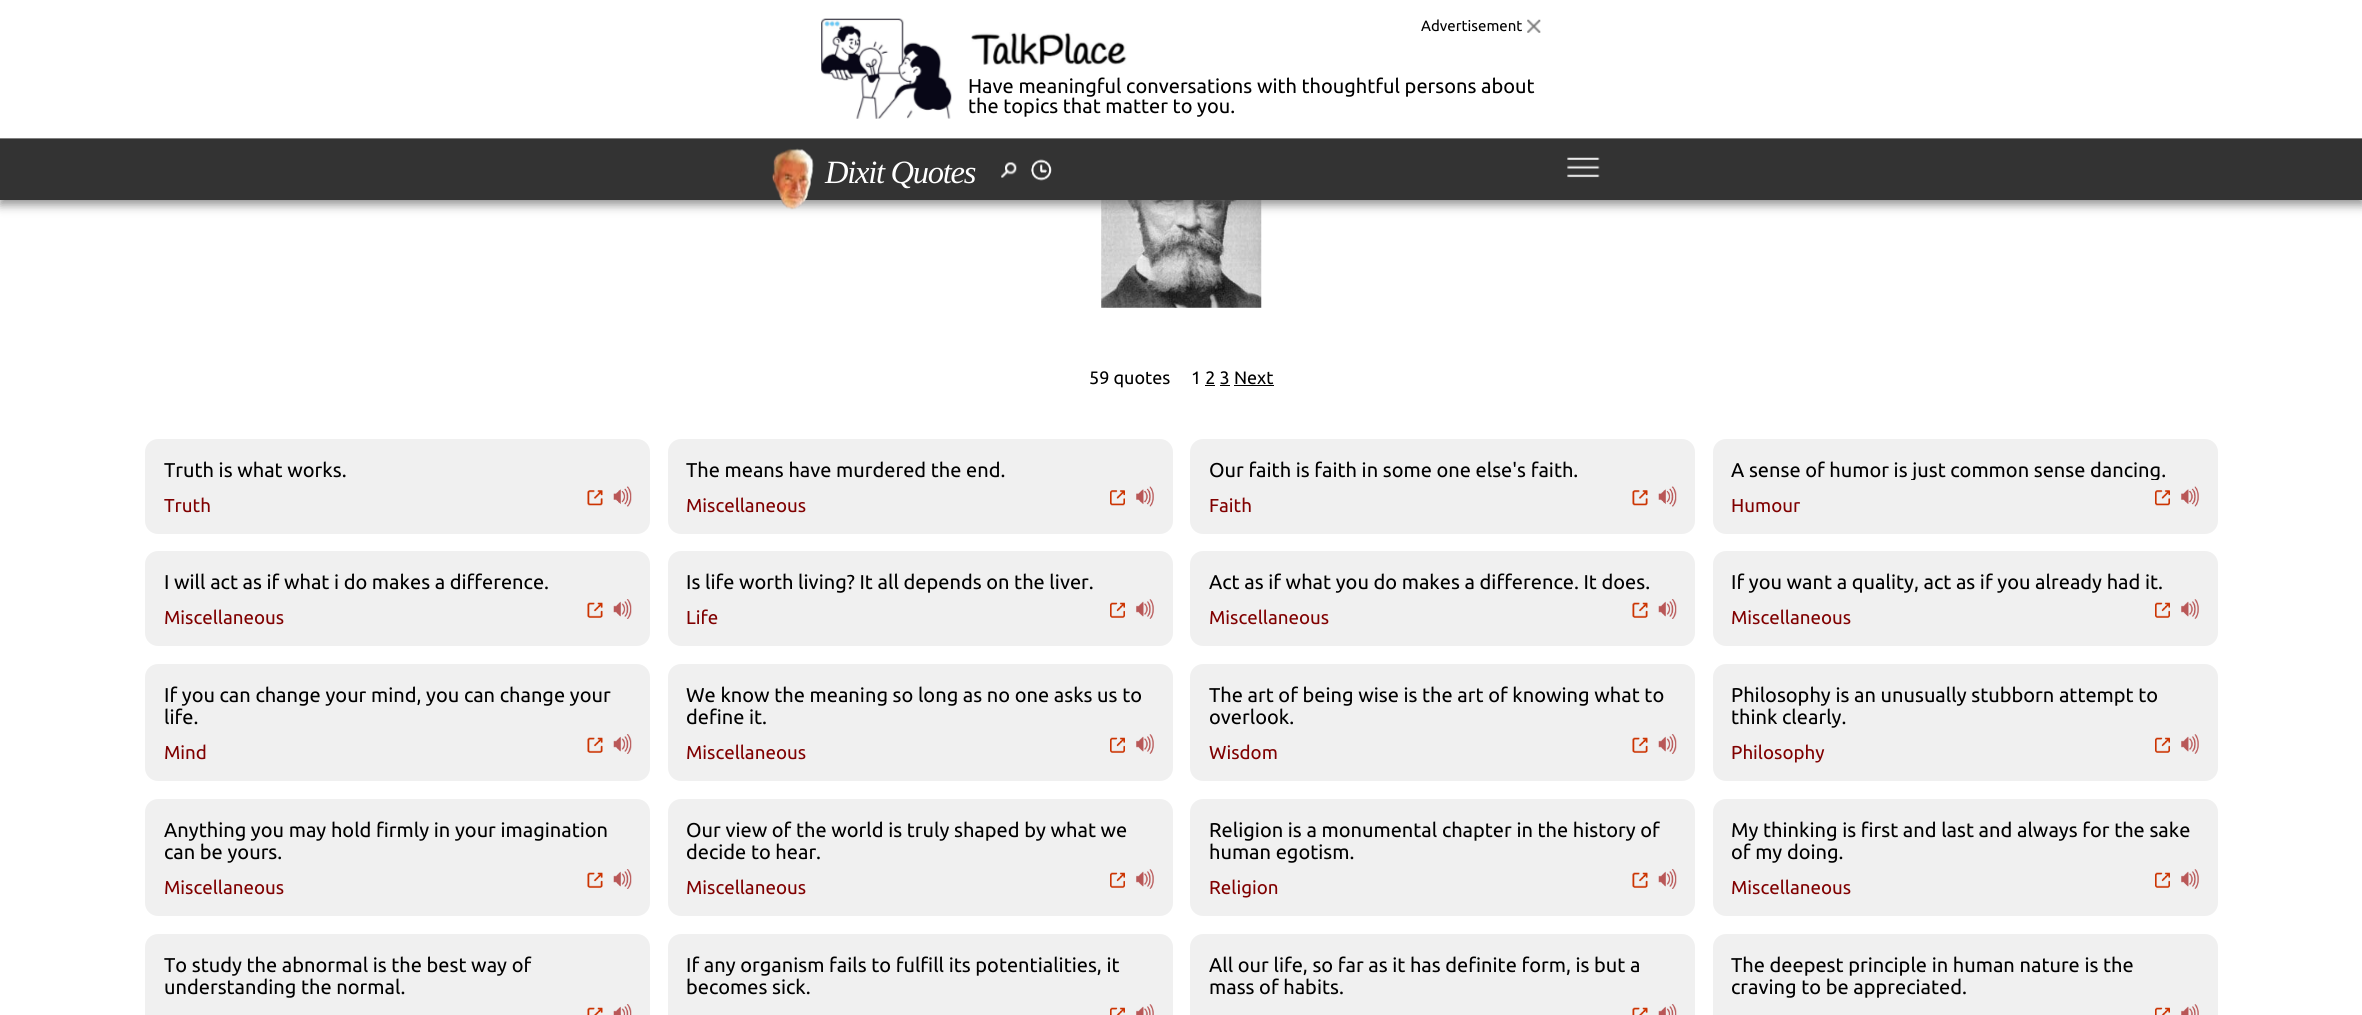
import math
import cairo

surface = cairo.ImageSurface(cairo.FORMAT_RGB24, 2362, 1015)
ctx = cairo.Context(surface)
options = cairo.FontOptions()
options.set_hint_metrics(cairo.HINT_METRICS_OFF)
options.set_hint_style(cairo.HINT_STYLE_NONE)
ctx.set_font_options(options)
ctx.set_miter_limit(4)


def spaced_text(x, y, s, letter, word):
    ctx.move_to(x, y)
    for ch in s:
        ctx.show_text(ch)
        ctx.rel_move_to(letter + word * (ch == ' '), 0)


def round_rect(x, y, w, h, r):
    ctx.new_sub_path()
    for i, (u, v) in enumerate([(x + w - r, y + h - r), (x + r, y + h - r), (x + r, y + r), (x + w - r, y + r)]):
        ctx.arc(u, v, r, i * math.pi / 2, (i + 1) * math.pi / 2)
    ctx.close_path()


def shadow(x, y, w, h, r, blur, alpha):
    ctx.push_group_with_content(cairo.CONTENT_ALPHA)
    ctx.set_operator(cairo.OPERATOR_SOURCE)
    for i in range(15, -16, -2):
        e = blur * i / 6
        if min(w, h) + 2 * e > 0:
            ctx.set_source_rgba(0, 0, 0, alpha * math.erfc((i - 1) / 8.5) / 2)
            round_rect(x - e, y - e, w + 2 * e, h + 2 * e, max(0, min(r + e + blur * .6, min(w, h) / 2 + e)))
            ctx.fill()
    ctx.mask(ctx.pop_group())


def picture(path, x, y, w, h):
    ctx.save()
    ctx.set_source_surface(cairo.ImageSurface.create_from_png(path), x, y)
    ctx.rectangle(x, y, w, h)
    ctx.fill()
    ctx.restore()


ctx.set_source_rgb(1, 1, 1)
ctx.paint()
picture("img8.png", 1101, 200, 161, 108)
ctx.set_source_rgb(0.392, 0.392, 0.392)
shadow(0, 5, 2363, 200, 0, 5, 0.69)
ctx.set_source_rgb(0.2, 0.2, 0.2)
ctx.rectangle(0, 139, 2362, 61)
ctx.fill()
ctx.set_source_rgb(1, 1, 1)
ctx.rectangle(0, 0, 2362, 138)
ctx.fill()
ctx.set_source_rgb(0.502, 0.502, 0.502)
ctx.rectangle(0, 138, 2362, 1)
ctx.fill()
picture("img1.png", 821, 18, 131, 101)
ctx.select_font_face("Ubuntu")
ctx.set_font_size(15)
ctx.set_source_rgb(0, 0, 0)
ctx.move_to(1421, 31)
ctx.show_text("Advertisement")
picture("img2.png", 1527, 19, 14, 14)
picture("img3.png", 971, 32, 156, 33)
ctx.set_font_size(20)
ctx.move_to(968, 93)
ctx.show_text("Have meaningful conversations with thoughtful persons about")
ctx.move_to(968, 113)
ctx.show_text("the topics that matter to you.")
picture("img4.png", 772, 148, 42, 62)
ctx.select_font_face("Liberation Serif", cairo.FONT_SLANT_ITALIC)
ctx.set_font_size(32.5)
ctx.set_source_rgb(1, 1, 1)
spaced_text(825, 183, "Dixit Quotes", -1.25, 0)
picture("img5.png", 1001, 162, 16, 16)
picture("img6.png", 1031, 159, 21, 22)
picture("img7.png", 1567, 157, 33, 21)
ctx.select_font_face("Ubuntu")
ctx.set_font_size(18)
ctx.set_source_rgb(0, 0, 0)
ctx.move_to(1089, 384)
ctx.show_text("59 quotes")
ctx.move_to(1191, 384)
ctx.show_text("1 2 3 Next")
ctx.rectangle(1205, 385, 10, 1)
ctx.fill()
ctx.rectangle(1220, 385, 10, 1)
ctx.fill()
ctx.rectangle(1234, 385, 40, 1)
ctx.fill()
ctx.set_source_rgb(0.941, 0.941, 0.941)
round_rect(145, 439, 505, 95, 13)
ctx.fill()
ctx.set_font_size(20)
ctx.set_source_rgb(0, 0, 0)
ctx.move_to(164, 477)
ctx.show_text("Truth is what works.")
ctx.set_font_size(18.75)
ctx.set_source_rgb(0.502, 0, 0)
ctx.move_to(164, 512)
ctx.show_text("Truth")
picture("img9.png", 587, 490, 16, 16)
picture("img10.png", 613, 486, 19, 21)
ctx.set_source_rgb(0.941, 0.941, 0.941)
round_rect(668, 439, 505, 95, 13)
ctx.fill()
ctx.set_font_size(20)
ctx.set_source_rgb(0, 0, 0)
ctx.move_to(686, 477)
ctx.show_text("The means have murdered the end.")
ctx.set_font_size(18.75)
ctx.set_source_rgb(0.502, 0, 0)
ctx.move_to(686, 512)
ctx.show_text("Miscellaneous")
picture("img11.png", 1110, 490, 15, 16)
picture("img12.png", 1136, 486, 18, 21)
ctx.set_source_rgb(0.941, 0.941, 0.941)
round_rect(1190, 439, 505, 95, 13)
ctx.fill()
ctx.set_font_size(20)
ctx.set_source_rgb(0, 0, 0)
ctx.move_to(1209, 477)
ctx.show_text("Our faith is faith in some one else's faith.")
ctx.set_font_size(18.75)
ctx.set_source_rgb(0.502, 0, 0)
ctx.move_to(1209, 512)
ctx.show_text("Faith")
picture("img9.png", 1632, 490, 16, 16)
picture("img10.png", 1658, 486, 19, 21)
ctx.set_source_rgb(0.941, 0.941, 0.941)
round_rect(1713, 439, 505, 95, 13)
ctx.fill()
ctx.save()
ctx.rectangle(1731, 458, 468, 22)
ctx.clip()
ctx.set_font_size(20)
ctx.set_source_rgb(0, 0, 0)
ctx.move_to(1731, 477)
ctx.show_text("A sense of humor is just common sense dancing.")
ctx.restore()
ctx.set_source_rgb(0.502, 0, 0)
ctx.move_to(1731, 512)
ctx.show_text("Humour")
picture("img13.png", 2155, 490, 15, 16)
picture("img12.png", 2181, 486, 18, 21)
ctx.set_source_rgb(0.941, 0.941, 0.941)
round_rect(145, 551, 505, 95, 13)
ctx.fill()
ctx.set_font_size(20)
ctx.set_source_rgb(0, 0, 0)
ctx.move_to(164, 589)
ctx.show_text("I will act as if what i do makes a difference.")
ctx.set_font_size(18.75)
ctx.set_source_rgb(0.502, 0, 0)
ctx.move_to(164, 624)
ctx.show_text("Miscellaneous")
picture("img14.png", 587, 602, 16, 16)
picture("img15.png", 613, 599, 19, 20)
ctx.set_source_rgb(0.941, 0.941, 0.941)
round_rect(668, 551, 505, 95, 13)
ctx.fill()
ctx.set_font_size(20)
ctx.set_source_rgb(0, 0, 0)
ctx.move_to(686, 589)
ctx.show_text("Is life worth living? It all depends on the liver.")
ctx.set_font_size(18.75)
ctx.set_source_rgb(0.502, 0, 0)
ctx.move_to(686, 624)
ctx.show_text("Life")
picture("img16.png", 1110, 602, 15, 16)
picture("img17.png", 1136, 599, 18, 20)
ctx.set_source_rgb(0.941, 0.941, 0.941)
round_rect(1190, 551, 505, 95, 13)
ctx.fill()
ctx.set_font_size(20)
ctx.set_source_rgb(0, 0, 0)
ctx.move_to(1209, 589)
ctx.show_text("Act as if what you do makes a difference. It does.")
ctx.set_font_size(18.75)
ctx.set_source_rgb(0.502, 0, 0)
ctx.move_to(1209, 624)
ctx.show_text("Miscellaneous")
picture("img14.png", 1632, 602, 16, 16)
picture("img15.png", 1658, 599, 19, 20)
ctx.set_source_rgb(0.941, 0.941, 0.941)
round_rect(1713, 551, 505, 95, 13)
ctx.fill()
ctx.set_font_size(20)
ctx.set_source_rgb(0, 0, 0)
ctx.move_to(1731, 589)
ctx.show_text("If you want a quality, act as if you already had it.")
ctx.set_font_size(18.75)
ctx.set_source_rgb(0.502, 0, 0)
ctx.move_to(1731, 624)
ctx.show_text("Miscellaneous")
picture("img18.png", 2155, 602, 15, 16)
picture("img17.png", 2181, 599, 18, 20)
ctx.set_source_rgb(0.941, 0.941, 0.941)
round_rect(145, 664, 505, 117, 13)
ctx.fill()
ctx.set_font_size(20)
ctx.set_source_rgb(0, 0, 0)
ctx.move_to(164, 702)
ctx.show_text("If you can change your mind, you can change your")
ctx.move_to(164, 724)
ctx.show_text("life.")
ctx.set_font_size(18.75)
ctx.set_source_rgb(0.502, 0, 0)
ctx.move_to(164, 759)
ctx.show_text("Mind")
picture("img14.png", 587, 737, 16, 16)
picture("img15.png", 613, 734, 19, 20)
ctx.set_source_rgb(0.941, 0.941, 0.941)
round_rect(668, 664, 505, 117, 13)
ctx.fill()
ctx.set_font_size(20)
ctx.set_source_rgb(0, 0, 0)
ctx.move_to(686, 702)
ctx.show_text("We know the meaning so long as no one asks us to")
ctx.move_to(686, 724)
ctx.show_text("define it.")
ctx.set_font_size(18.75)
ctx.set_source_rgb(0.502, 0, 0)
ctx.move_to(686, 759)
ctx.show_text("Miscellaneous")
picture("img16.png", 1110, 737, 15, 16)
picture("img17.png", 1136, 734, 18, 20)
ctx.set_source_rgb(0.941, 0.941, 0.941)
round_rect(1190, 664, 505, 117, 13)
ctx.fill()
ctx.set_font_size(20)
ctx.set_source_rgb(0, 0, 0)
ctx.move_to(1209, 702)
ctx.show_text("The art of being wise is the art of knowing what to")
ctx.move_to(1209, 724)
ctx.show_text("overlook.")
ctx.set_font_size(18.75)
ctx.set_source_rgb(0.502, 0, 0)
ctx.move_to(1209, 759)
ctx.show_text("Wisdom")
picture("img14.png", 1632, 737, 16, 16)
picture("img15.png", 1658, 734, 19, 20)
ctx.set_source_rgb(0.941, 0.941, 0.941)
round_rect(1713, 664, 505, 117, 13)
ctx.fill()
ctx.set_font_size(20)
ctx.set_source_rgb(0, 0, 0)
ctx.move_to(1731, 702)
ctx.show_text("Philosophy is an unusually stubborn attempt to")
ctx.move_to(1731, 724)
ctx.show_text("think clearly.")
ctx.set_font_size(18.75)
ctx.set_source_rgb(0.502, 0, 0)
ctx.move_to(1731, 759)
ctx.show_text("Philosophy")
picture("img18.png", 2155, 737, 15, 16)
picture("img17.png", 2181, 734, 18, 20)
ctx.set_source_rgb(0.941, 0.941, 0.941)
round_rect(145, 799, 505, 117, 13)
ctx.fill()
ctx.set_font_size(20)
ctx.set_source_rgb(0, 0, 0)
ctx.move_to(164, 837)
ctx.show_text("Anything you may hold firmly in your imagination")
ctx.move_to(164, 859)
ctx.show_text("can be yours.")
ctx.set_font_size(18.75)
ctx.set_source_rgb(0.502, 0, 0)
ctx.move_to(164, 894)
ctx.show_text("Miscellaneous")
picture("img14.png", 587, 872, 16, 16)
picture("img15.png", 613, 869, 19, 20)
ctx.set_source_rgb(0.941, 0.941, 0.941)
round_rect(668, 799, 505, 117, 13)
ctx.fill()
ctx.set_font_size(20)
ctx.set_source_rgb(0, 0, 0)
ctx.move_to(686, 837)
ctx.show_text("Our view of the world is truly shaped by what we")
ctx.move_to(686, 859)
ctx.show_text("decide to hear.")
ctx.set_font_size(18.75)
ctx.set_source_rgb(0.502, 0, 0)
ctx.move_to(686, 894)
ctx.show_text("Miscellaneous")
picture("img16.png", 1110, 872, 15, 16)
picture("img17.png", 1136, 869, 18, 20)
ctx.set_source_rgb(0.941, 0.941, 0.941)
round_rect(1190, 799, 505, 117, 13)
ctx.fill()
ctx.set_font_size(20)
ctx.set_source_rgb(0, 0, 0)
ctx.move_to(1209, 837)
ctx.show_text("Religion is a monumental chapter in the history of")
ctx.move_to(1209, 859)
ctx.show_text("human egotism.")
ctx.set_font_size(18.75)
ctx.set_source_rgb(0.502, 0, 0)
ctx.move_to(1209, 894)
ctx.show_text("Religion")
picture("img14.png", 1632, 872, 16, 16)
picture("img15.png", 1658, 869, 19, 20)
ctx.set_source_rgb(0.941, 0.941, 0.941)
round_rect(1713, 799, 505, 117, 13)
ctx.fill()
ctx.set_font_size(20)
ctx.set_source_rgb(0, 0, 0)
ctx.move_to(1731, 837)
ctx.show_text("My thinking is first and last and always for the sake")
ctx.move_to(1731, 859)
ctx.show_text("of my doing.")
ctx.set_font_size(18.75)
ctx.set_source_rgb(0.502, 0, 0)
ctx.move_to(1731, 894)
ctx.show_text("Miscellaneous")
picture("img18.png", 2155, 872, 15, 16)
picture("img17.png", 2181, 869, 18, 20)
ctx.set_source_rgb(0.941, 0.941, 0.941)
round_rect(145, 934, 505, 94, 13)
ctx.fill()
ctx.set_font_size(20)
ctx.set_source_rgb(0, 0, 0)
ctx.move_to(164, 972)
ctx.show_text("To study the abnormal is the best way of")
ctx.move_to(164, 994)
ctx.show_text("understanding the normal.")
picture("img19.png", 587, 1007, 16, 8)
picture("img20.png", 613, 1004, 19, 11)
ctx.set_source_rgb(0.941, 0.941, 0.941)
round_rect(668, 934, 505, 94, 13)
ctx.fill()
ctx.set_source_rgb(0, 0, 0)
ctx.move_to(686, 972)
ctx.show_text("If any organism fails to fulfill its potentialities, it")
ctx.move_to(686, 994)
ctx.show_text("becomes sick.")
picture("img21.png", 1110, 1007, 15, 8)
picture("img22.png", 1136, 1004, 18, 11)
ctx.set_source_rgb(0.941, 0.941, 0.941)
round_rect(1190, 934, 505, 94, 13)
ctx.fill()
ctx.set_source_rgb(0, 0, 0)
ctx.move_to(1209, 972)
ctx.show_text("All our life, so far as it has definite form, is but a")
ctx.move_to(1209, 994)
ctx.show_text("mass of habits.")
picture("img19.png", 1632, 1007, 16, 8)
picture("img20.png", 1658, 1004, 19, 11)
ctx.set_source_rgb(0.941, 0.941, 0.941)
round_rect(1713, 934, 505, 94, 13)
ctx.fill()
ctx.set_source_rgb(0, 0, 0)
ctx.move_to(1731, 972)
ctx.show_text("The deepest principle in human nature is the")
ctx.move_to(1731, 994)
ctx.show_text("craving to be appreciated.")
picture("img23.png", 2155, 1007, 15, 8)
picture("img22.png", 2181, 1004, 18, 11)
surface.write_to_png("page.png")
